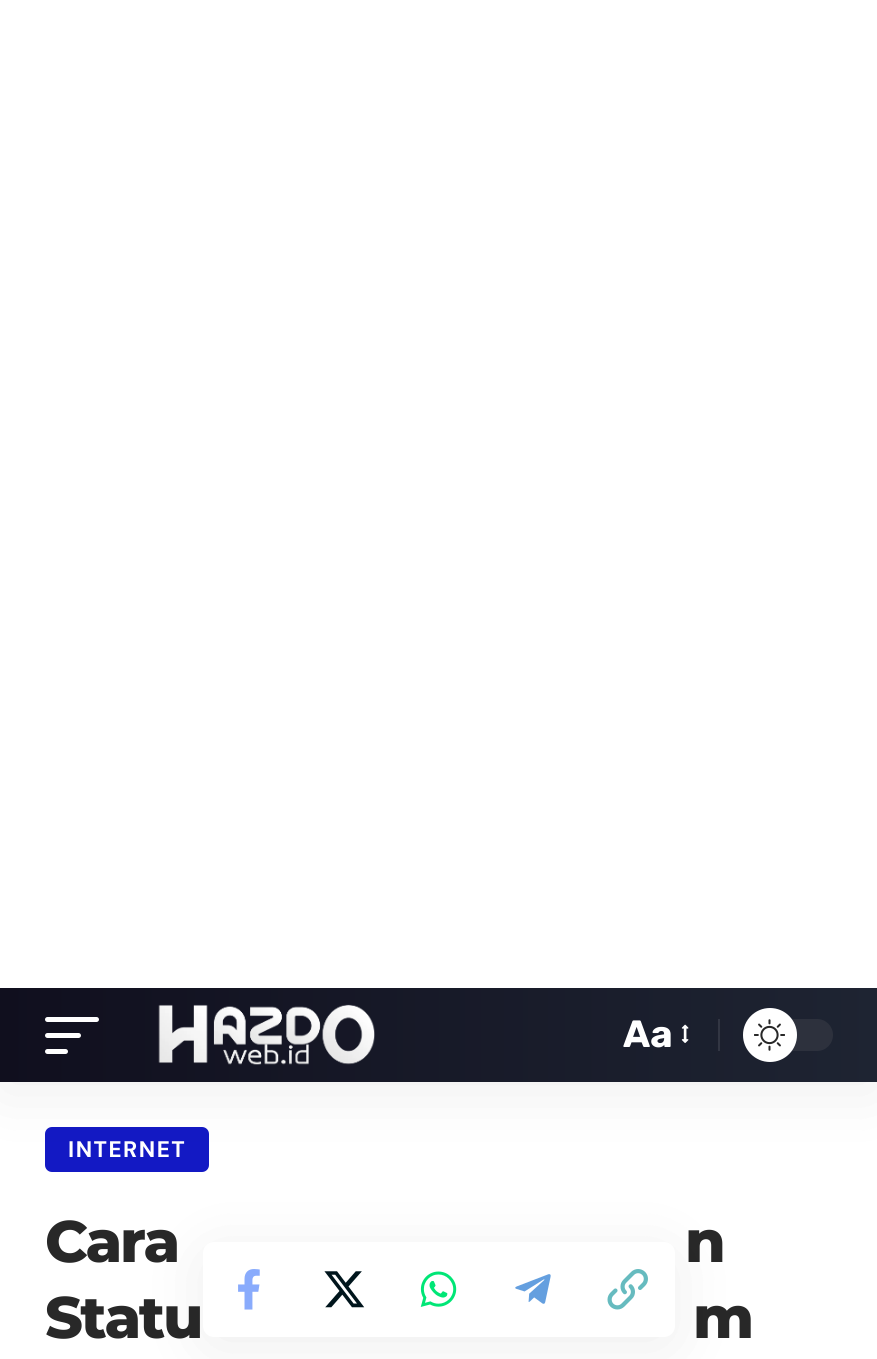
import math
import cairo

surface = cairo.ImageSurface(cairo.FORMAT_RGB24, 877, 1359)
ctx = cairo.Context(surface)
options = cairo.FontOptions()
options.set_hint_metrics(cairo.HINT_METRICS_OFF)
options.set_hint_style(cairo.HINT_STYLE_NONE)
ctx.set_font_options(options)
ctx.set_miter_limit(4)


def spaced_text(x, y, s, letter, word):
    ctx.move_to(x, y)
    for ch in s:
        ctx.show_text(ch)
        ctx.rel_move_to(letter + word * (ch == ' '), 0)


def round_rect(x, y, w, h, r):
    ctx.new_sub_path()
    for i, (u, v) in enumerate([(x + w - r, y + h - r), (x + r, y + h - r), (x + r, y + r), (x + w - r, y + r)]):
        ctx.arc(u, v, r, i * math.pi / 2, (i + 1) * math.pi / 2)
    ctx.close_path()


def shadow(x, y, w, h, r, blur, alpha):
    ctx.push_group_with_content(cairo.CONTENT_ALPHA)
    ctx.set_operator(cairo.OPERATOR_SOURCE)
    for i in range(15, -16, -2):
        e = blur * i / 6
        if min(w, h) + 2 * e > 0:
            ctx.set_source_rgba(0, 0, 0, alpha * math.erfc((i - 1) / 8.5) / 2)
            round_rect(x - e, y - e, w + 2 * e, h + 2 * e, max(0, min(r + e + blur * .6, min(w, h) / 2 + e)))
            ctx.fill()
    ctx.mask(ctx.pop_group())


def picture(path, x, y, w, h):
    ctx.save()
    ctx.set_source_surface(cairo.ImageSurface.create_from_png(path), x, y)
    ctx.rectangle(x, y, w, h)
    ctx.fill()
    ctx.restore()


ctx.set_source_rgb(1, 1, 1)
ctx.paint()
ctx.set_source_rgb(0.075, 0.098, 0.769)
round_rect(45, 1127, 164, 45, 7)
ctx.fill()
ctx.save()
ctx.rectangle(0, 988, 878, 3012)
ctx.clip()
ctx.set_source_rgb(0, 0, 0)
shadow(0, 997, 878, 94, 0, 34, 0.07)
ctx.restore()
gradient = cairo.LinearGradient(0, 1035, 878, 1035)
gradient.add_color_stop_rgba(0, 0.063, 0.059, 0.118, 1)
gradient.add_color_stop_rgba(1, 0.118, 0.141, 0.196, 1)
ctx.set_source(gradient)
ctx.rectangle(0, 988, 877, 94)
ctx.fill()
ctx.set_source_rgb(1, 1, 1)
round_rect(45, 1017, 54, 5, 2.5)
ctx.fill()
round_rect(45, 1033, 36, 5, 2.5)
ctx.fill()
round_rect(45, 1049, 23, 5, 2.5)
ctx.fill()
picture("img1.png", 158, 1004, 217, 61)
ctx.select_font_face("Rubik", cairo.FONT_SLANT_NORMAL, cairo.FONT_WEIGHT_BOLD)
ctx.set_font_size(38)
ctx.move_to(623, 1047)
ctx.show_text("Aa")
picture("img2.png", 681, 1024, 8, 19)
ctx.set_source_rgb(0.196, 0.212, 0.263)
ctx.rectangle(718, 1019, 2, 32)
ctx.fill()
ctx.set_source_rgb(0.176, 0.192, 0.239)
round_rect(743, 1019, 90, 32, 16)
ctx.fill()
ctx.set_source_rgb(1, 1, 1)
ctx.arc(770, 1035, 27, 0, 2 * math.pi)
ctx.fill()
picture("img3.png", 754, 1019, 31, 32)
ctx.select_font_face("DM Sans", cairo.FONT_SLANT_NORMAL, cairo.FONT_WEIGHT_BOLD)
ctx.set_font_size(22.5)
spaced_text(68, 1157, "INTERNET", 1.5, 0)
ctx.select_font_face("Montserrat ExtraBold")
ctx.set_font_size(58.5)
ctx.set_source_rgb(0.157, 0.157, 0.157)
spaced_text(45, 1262, "Cara", -2.25, 0)
spaced_text(685, 1262, "n", -2.25, 0)
spaced_text(45, 1338, "Statu", -2.25, 0)
spaced_text(693, 1338, "m", -2.25, 0)
ctx.set_source_rgb(0, 0, 0)
shadow(203, 1253, 472, 95, 11, 34, 0.07)
ctx.set_source_rgb(1, 1, 1)
round_rect(203, 1242, 472, 95, 11)
ctx.fill()
picture("img4.png", 238, 1269, 22, 41)
picture("img5.png", 324, 1271, 41, 37)
picture("img6.png", 420, 1271, 37, 36)
picture("img7.png", 515, 1274, 36, 30)
picture("img8.png", 607, 1269, 41, 41)
surface.write_to_png("page.png")
